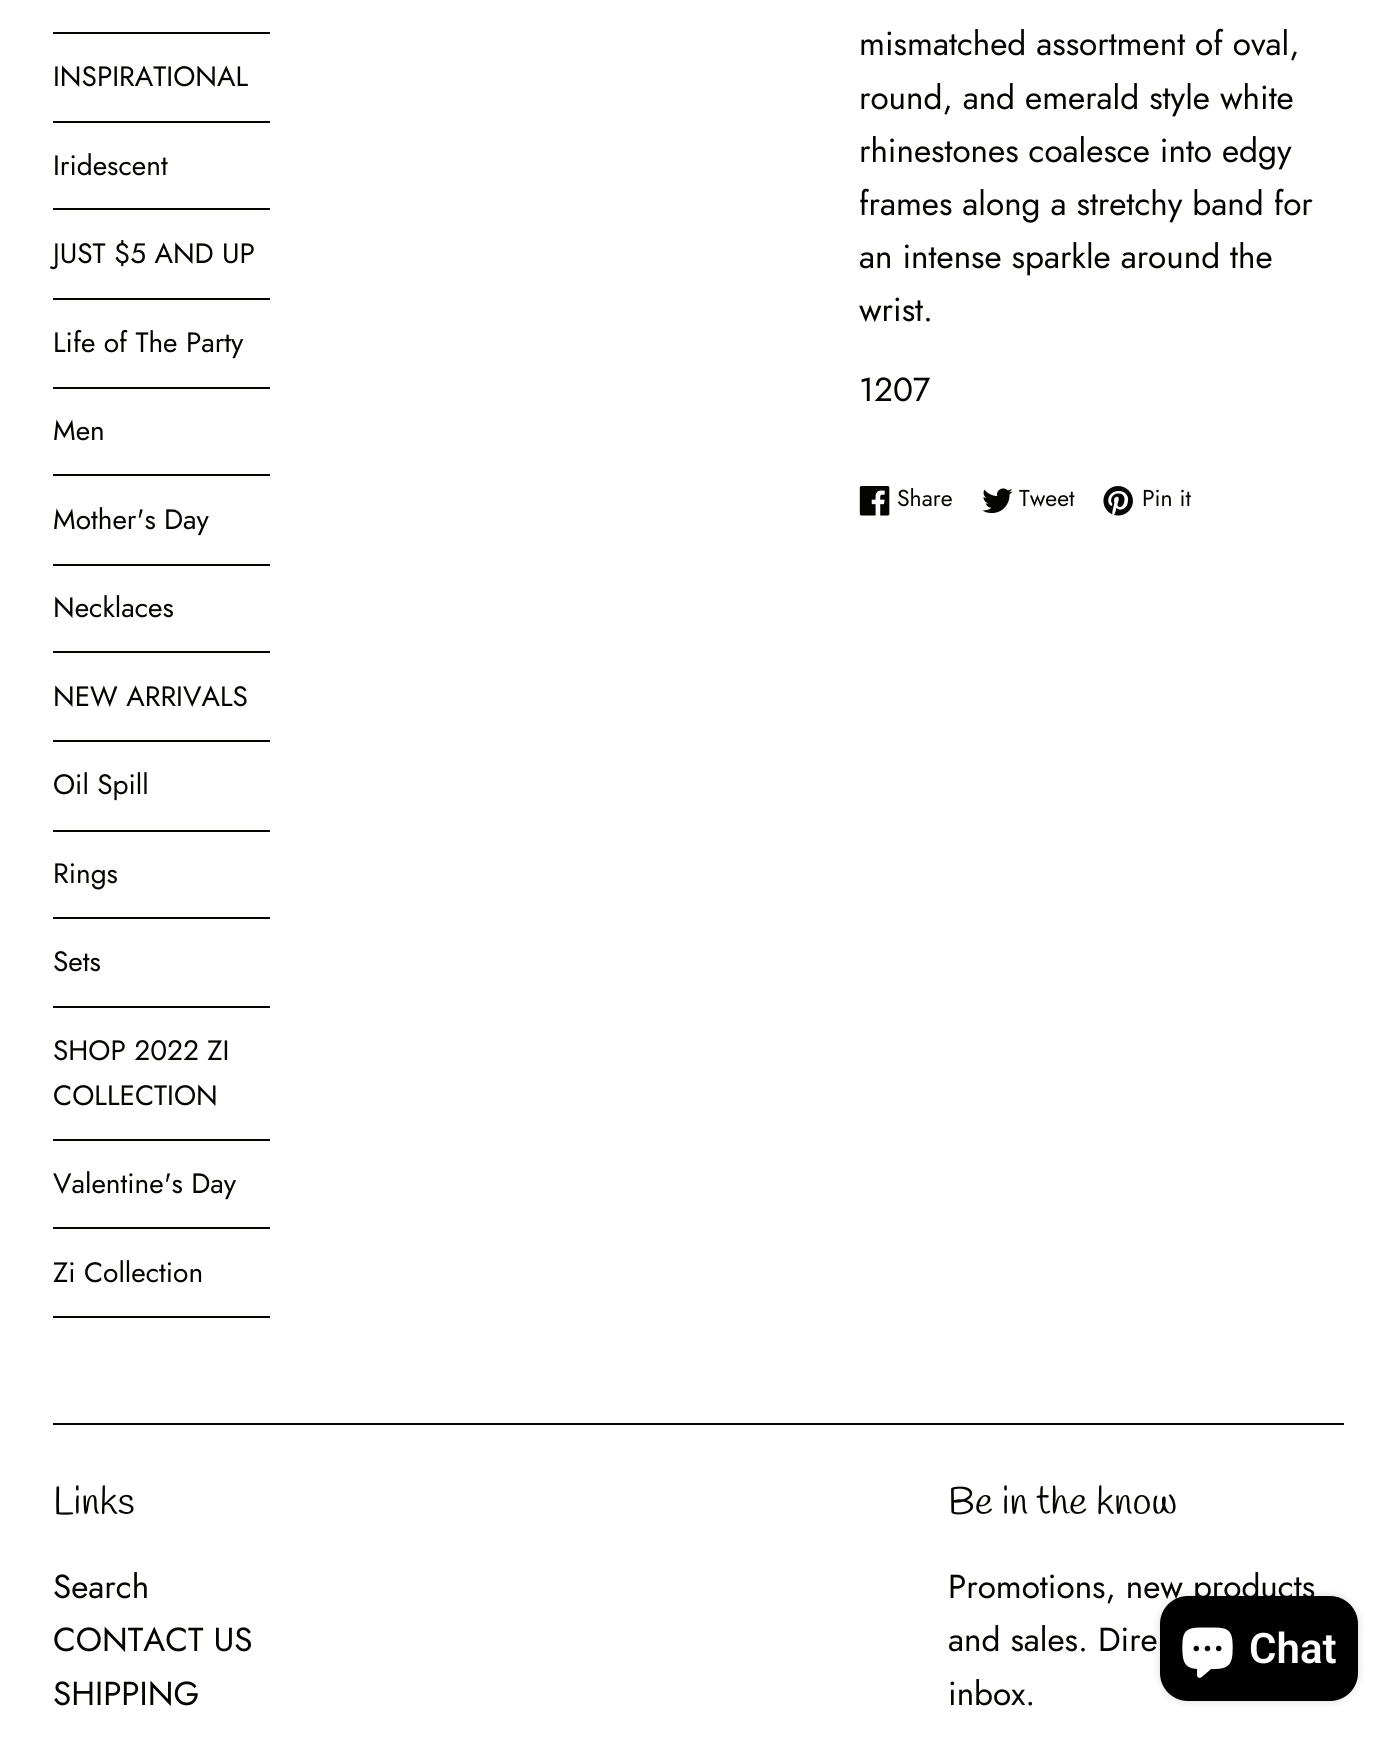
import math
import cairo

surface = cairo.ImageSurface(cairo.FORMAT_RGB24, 1396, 1737)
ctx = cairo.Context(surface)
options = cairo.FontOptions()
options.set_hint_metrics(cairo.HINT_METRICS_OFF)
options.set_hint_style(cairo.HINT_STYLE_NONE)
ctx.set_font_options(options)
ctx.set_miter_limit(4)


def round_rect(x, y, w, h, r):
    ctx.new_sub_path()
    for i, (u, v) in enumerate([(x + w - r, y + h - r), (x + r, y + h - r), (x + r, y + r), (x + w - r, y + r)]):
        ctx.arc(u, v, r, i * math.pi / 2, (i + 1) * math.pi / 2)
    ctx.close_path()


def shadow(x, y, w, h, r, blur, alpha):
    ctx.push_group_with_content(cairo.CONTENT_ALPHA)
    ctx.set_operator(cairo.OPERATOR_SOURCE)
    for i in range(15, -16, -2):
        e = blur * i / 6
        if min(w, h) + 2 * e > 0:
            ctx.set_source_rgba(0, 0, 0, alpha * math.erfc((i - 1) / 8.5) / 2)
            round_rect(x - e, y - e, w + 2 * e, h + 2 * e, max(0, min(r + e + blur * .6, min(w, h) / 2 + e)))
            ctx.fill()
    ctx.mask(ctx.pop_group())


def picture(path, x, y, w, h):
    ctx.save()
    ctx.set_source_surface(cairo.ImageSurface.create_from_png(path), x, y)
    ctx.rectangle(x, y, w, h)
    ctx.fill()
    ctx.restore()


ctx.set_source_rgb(1, 1, 1)
ctx.paint()
ctx.set_source_rgb(0.016, 0.02, 0)
ctx.rectangle(53, 32, 217, 2)
ctx.fill()
ctx.rectangle(53, 121, 217, 2)
ctx.fill()
ctx.select_font_face("Jost")
ctx.set_font_size(28)
ctx.move_to(53, 86)
ctx.show_text("INSPIRATIONAL")
ctx.rectangle(53, 208, 217, 2)
ctx.fill()
ctx.move_to(53, 175)
ctx.show_text("Iridescent")
ctx.rectangle(53, 298, 217, 2)
ctx.fill()
ctx.move_to(53, 263)
ctx.show_text("JUST $5 AND UP")
ctx.rectangle(53, 387, 217, 2)
ctx.fill()
ctx.move_to(53, 352)
ctx.show_text("Life of The Party")
ctx.rectangle(53, 474, 217, 2)
ctx.fill()
ctx.move_to(53, 440)
ctx.show_text("Men")
ctx.rectangle(53, 564, 217, 2)
ctx.fill()
ctx.move_to(53, 529)
ctx.show_text("Mother's Day")
ctx.rectangle(53, 651, 217, 2)
ctx.fill()
ctx.move_to(53, 617)
ctx.show_text("Necklaces")
ctx.rectangle(53, 740, 217, 2)
ctx.fill()
ctx.move_to(53, 706)
ctx.show_text("NEW ARRIVALS")
ctx.rectangle(53, 830, 217, 2)
ctx.fill()
ctx.move_to(53, 794)
ctx.show_text("Oil Spill")
ctx.rectangle(53, 917, 217, 2)
ctx.fill()
ctx.move_to(53, 883)
ctx.show_text("Rings")
ctx.rectangle(53, 1006, 217, 2)
ctx.fill()
ctx.move_to(53, 971)
ctx.show_text("Sets")
ctx.rectangle(53, 1139, 217, 2)
ctx.fill()
ctx.move_to(53, 1060)
ctx.show_text("SHOP 2022 ZI")
ctx.move_to(53, 1105)
ctx.show_text("COLLECTION")
ctx.rectangle(53, 1227, 217, 2)
ctx.fill()
ctx.move_to(53, 1193)
ctx.show_text("Valentine's Day")
ctx.rectangle(53, 1316, 217, 2)
ctx.fill()
ctx.move_to(53, 1282)
ctx.show_text("Zi Collection")
ctx.set_font_size(33.25)
ctx.move_to(859, 55)
ctx.show_text("mismatched assortment of oval,")
ctx.move_to(859, 109)
ctx.show_text("round, and emerald style white")
ctx.move_to(859, 162)
ctx.show_text("rhinestones coalesce into edgy")
ctx.move_to(859, 215)
ctx.show_text("frames along a stretchy band for")
ctx.move_to(859, 268)
ctx.show_text("an intense sparkle around the")
ctx.move_to(859, 321)
ctx.show_text("wrist.")
ctx.move_to(859, 401)
ctx.show_text("1207")
picture("img1.png", 859, 486, 31, 30)
ctx.set_font_size(23)
ctx.move_to(897, 506)
ctx.show_text("Share")
picture("img2.png", 982, 488, 31, 26)
ctx.move_to(1019, 506)
ctx.show_text("Tweet")
picture("img3.png", 1103, 486, 30, 30)
ctx.move_to(1142, 506)
ctx.show_text("Pin it")
ctx.rectangle(53, 1423, 1291, 2)
ctx.fill()
ctx.select_font_face("Handlee")
ctx.set_font_size(38.5)
ctx.move_to(53, 1514)
ctx.show_text("Links")
ctx.select_font_face("Jost")
ctx.set_font_size(33.25)
ctx.move_to(53, 1598)
ctx.show_text("Search")
ctx.move_to(53, 1651)
ctx.show_text("CONTACT US")
ctx.move_to(53, 1705)
ctx.show_text("SHIPPING")
ctx.select_font_face("Handlee")
ctx.set_font_size(38.5)
ctx.move_to(948, 1514)
ctx.show_text("Be in the know")
ctx.select_font_face("Jost")
ctx.set_font_size(33.25)
ctx.move_to(948, 1598)
ctx.show_text("Promotions, new products")
ctx.move_to(948, 1651)
ctx.show_text("and sales. Dire")
ctx.move_to(948, 1705)
ctx.show_text("inbox.")
ctx.set_source_rgb(0, 0, 0)
shadow(1160, 1596, 198, 105, 28, 4.5, 0.15)
ctx.set_source_rgb(0, 0, 0)
round_rect(1160, 1596, 198, 105, 28)
ctx.fill()
picture("img4.png", 1182, 1627, 51, 51)
ctx.select_font_face("Roboto SemiBold")
ctx.set_font_size(42)
ctx.set_source_rgb(1, 1, 1)
ctx.move_to(1249, 1663)
ctx.show_text("Chat")
surface.write_to_png("page.png")
